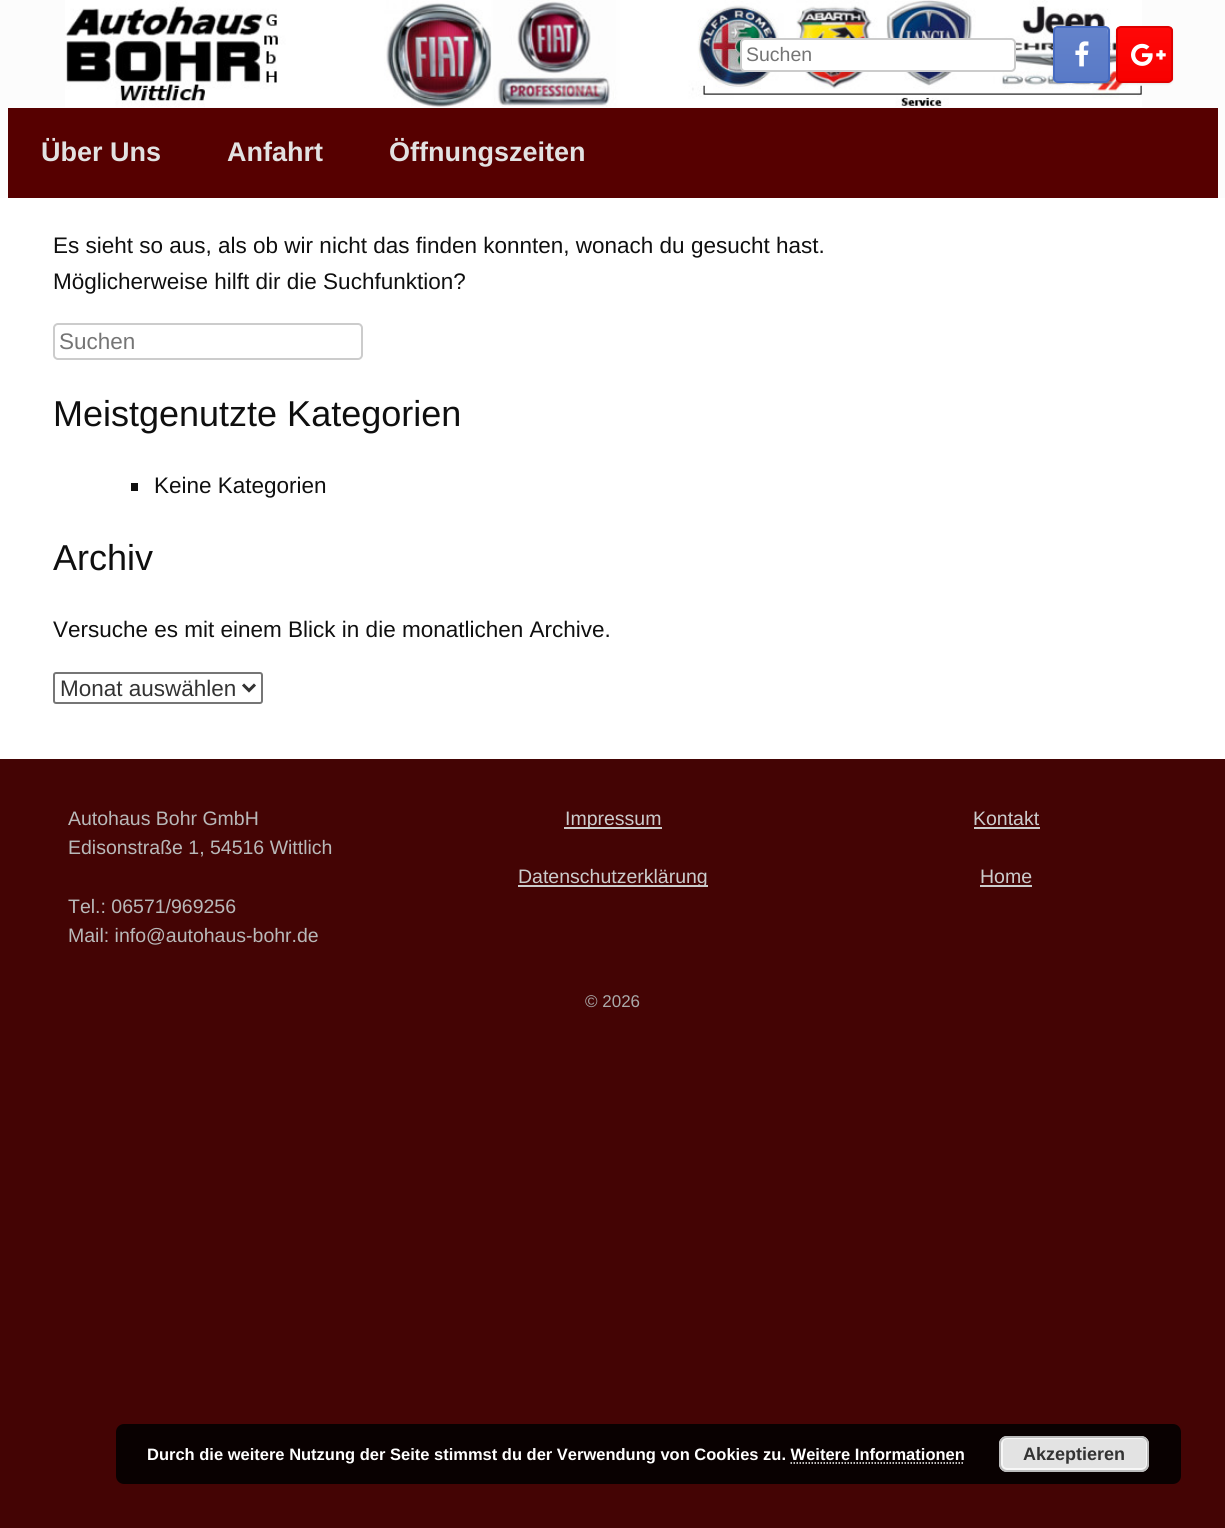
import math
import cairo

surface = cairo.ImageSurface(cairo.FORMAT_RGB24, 1225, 1528)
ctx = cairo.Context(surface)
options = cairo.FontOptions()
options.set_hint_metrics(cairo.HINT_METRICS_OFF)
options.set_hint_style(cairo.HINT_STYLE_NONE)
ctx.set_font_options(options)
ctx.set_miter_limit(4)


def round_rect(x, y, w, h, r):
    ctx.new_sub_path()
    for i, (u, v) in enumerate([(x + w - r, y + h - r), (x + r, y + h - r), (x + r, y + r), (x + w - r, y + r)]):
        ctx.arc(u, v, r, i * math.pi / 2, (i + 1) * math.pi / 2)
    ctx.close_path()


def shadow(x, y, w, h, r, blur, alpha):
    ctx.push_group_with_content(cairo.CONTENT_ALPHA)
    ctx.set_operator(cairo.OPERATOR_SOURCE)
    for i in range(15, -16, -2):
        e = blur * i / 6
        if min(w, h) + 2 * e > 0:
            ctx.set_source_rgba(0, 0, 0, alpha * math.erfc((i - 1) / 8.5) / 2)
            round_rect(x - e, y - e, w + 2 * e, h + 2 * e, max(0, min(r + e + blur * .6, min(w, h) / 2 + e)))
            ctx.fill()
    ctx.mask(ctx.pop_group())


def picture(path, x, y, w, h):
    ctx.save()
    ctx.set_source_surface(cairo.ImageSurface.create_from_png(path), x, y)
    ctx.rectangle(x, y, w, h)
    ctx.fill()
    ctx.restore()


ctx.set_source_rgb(0.267, 0.016, 0.016)
ctx.paint()
ctx.set_source_rgb(0.988, 0.988, 0.988)
ctx.rectangle(0, 0, 1225, 198)
ctx.fill()
picture("img1.png", 65, 0, 1077, 107)
ctx.set_source_rgb(1, 1, 1)
round_rect(741, 39, 274, 32, 4)
ctx.fill_preserve()
ctx.set_source_rgb(0.8, 0.8, 0.8)
ctx.stroke()
ctx.select_font_face("Liberation Sans")
ctx.set_font_size(19.5)
ctx.set_source_rgb(0.459, 0.459, 0.459)
ctx.move_to(746, 61)
ctx.show_text("Suchen")
ctx.set_source_rgb(0, 0, 0)
shadow(1053, 27, 57, 57, 5, 1, 0.1)
ctx.save()
round_rect(1053, 26, 57, 57, 5)
ctx.clip()
gradient = cairo.LinearGradient(1055, 81, 1055, 27)
gradient.add_color_stop_rgba(0, 0.349, 0.478, 0.78, 1)
gradient.add_color_stop_rgba(1, 0.392, 0.514, 0.796, 1)
ctx.set_source(gradient)
ctx.rectangle(1053, 27, 57, 54)
ctx.fill()
ctx.restore()
ctx.set_source_rgba(1, 1, 1, 0.2)
ctx.new_path()
ctx.move_to(1058, 28)
ctx.line_to(1106, 28)
ctx.curve_to(1109, 30, 1108, 46, 1108, 48)
ctx.line_to(1108, 80)
ctx.curve_to(1109, 80, 1109, 79, 1109, 78)
ctx.line_to(1109, 30)
ctx.curve_to(1109, 28, 1108, 27, 1106, 27)
ctx.line_to(1058, 27)
ctx.curve_to(1057, 27, 1055, 28, 1055, 29)
ctx.close_path()
ctx.fill()
round_rect(1054, 27, 55, 55, 4)
ctx.set_source_rgb(0.275, 0.42, 0.757)
ctx.stroke()
picture("img2.png", 1075, 41, 14, 26)
ctx.set_source_rgb(0, 0, 0)
shadow(1116, 27, 57, 57, 5, 1, 0.1)
ctx.save()
round_rect(1116, 26, 57, 57, 5)
ctx.clip()
gradient = cairo.LinearGradient(1118, 81, 1118, 27)
gradient.add_color_stop_rgba(0, 0.973, 0, 0, 1)
gradient.add_color_stop_rgba(1, 1, 0.031, 0.031, 1)
ctx.set_source(gradient)
ctx.rectangle(1116, 27, 57, 54)
ctx.fill()
ctx.restore()
round_rect(1117, 27, 55, 55, 4)
ctx.set_source_rgb(0.875, 0, 0)
ctx.stroke()
picture("img3.png", 1131, 43, 35, 23)
ctx.set_source_rgb(0.337, 0, 0)
ctx.rectangle(8, 108, 1210, 90)
ctx.fill()
ctx.select_font_face("Liberation Sans", cairo.FONT_SLANT_NORMAL, cairo.FONT_WEIGHT_BOLD)
ctx.set_font_size(27)
ctx.set_source_rgb(0.886, 0.886, 0.886)
ctx.move_to(41, 161)
ctx.show_text("Über Uns")
ctx.move_to(227, 161)
ctx.show_text("Anfahrt")
ctx.move_to(389, 161)
ctx.show_text("Öffnungszeiten")
ctx.set_source_rgb(1, 1, 1)
ctx.rectangle(0, 198, 1225, 561)
ctx.fill()
ctx.select_font_face("Liberation Sans")
ctx.set_font_size(22.5)
ctx.set_source_rgb(0.059, 0.059, 0.059)
ctx.move_to(53, 253)
ctx.show_text("Es sieht so aus, als ob wir nicht das finden konnten, wonach du gesucht hast.")
ctx.move_to(53, 289)
ctx.show_text("Möglicherweise hilft dir die Suchfunktion?")
round_rect(54, 324, 308, 35, 4)
ctx.set_source_rgb(0.8, 0.8, 0.8)
ctx.stroke()
ctx.set_source_rgb(0.459, 0.459, 0.459)
ctx.move_to(59, 349)
ctx.show_text("Suchen")
ctx.set_font_size(36)
ctx.set_source_rgb(0.059, 0.059, 0.059)
ctx.move_to(53, 426)
ctx.show_text("Meistgenutzte Kategorien")
ctx.rectangle(131, 483, 7, 8)
ctx.fill()
ctx.set_font_size(22.5)
ctx.move_to(154, 493)
ctx.show_text("Keine Kategorien")
ctx.set_font_size(36)
ctx.move_to(53, 570)
ctx.show_text("Archiv")
ctx.set_font_size(22.5)
ctx.move_to(53, 637)
ctx.show_text("Versuche es mit einem Blick in die monatlichen Archive.")
round_rect(54, 673, 208, 30, 2)
ctx.set_source_rgb(0.463, 0.463, 0.463)
ctx.stroke()
ctx.new_path()
ctx.move_to(243, 684.5)
ctx.line_to(249, 690.5)
ctx.line_to(255, 684.5)
ctx.set_source_rgb(0.2, 0.2, 0.2)
ctx.set_line_width(3)
ctx.stroke()
ctx.move_to(60, 696)
ctx.show_text("Monat auswählen")
ctx.set_font_size(19.5)
ctx.set_source_rgb(0.725, 0.725, 0.725)
ctx.move_to(68, 825)
ctx.show_text("Autohaus Bohr GmbH")
ctx.move_to(68, 854)
ctx.show_text("Edisonstraße 1, 54516 Wittlich")
ctx.move_to(68, 913)
ctx.show_text("Tel.: 06571/969256")
ctx.move_to(68, 942)
ctx.show_text("Mail: info@autohaus-bohr.de")
ctx.set_source_rgb(0.8, 0.8, 0.8)
ctx.rectangle(564, 827, 98, 2)
ctx.fill()
ctx.move_to(565, 825)
ctx.show_text("Impressum")
ctx.rectangle(518, 885, 190, 2)
ctx.fill()
ctx.move_to(518, 883)
ctx.show_text("Datenschutzerklärung")
ctx.move_to(973, 825)
ctx.show_text("Kontakt")
ctx.rectangle(974, 827, 66, 2)
ctx.fill()
ctx.move_to(980, 883)
ctx.show_text("Home")
ctx.rectangle(980, 885, 52, 2)
ctx.fill()
ctx.set_font_size(17)
ctx.set_source_rgb(0.667, 0.667, 0.667)
ctx.move_to(585, 1007)
ctx.show_text("© 2026")
ctx.set_source_rgb(0.039, 0.004, 0.004)
round_rect(116, 1424, 1065, 60, 8)
ctx.fill()
ctx.select_font_face("Liberation Sans", cairo.FONT_SLANT_NORMAL, cairo.FONT_WEIGHT_BOLD)
ctx.set_font_size(16.5)
ctx.set_source_rgb(1, 1, 1)
ctx.move_to(147, 1460)
ctx.show_text("Durch die weitere Nutzung der Seite stimmst du der Verwendung von Cookies zu. Weitere Informationen")
ctx.set_source_rgb(0.89, 0.89, 0.89)
round_rect(999, 1436, 150, 36, 8)
ctx.fill()
round_rect(1002, 1438, 145, 31, 5)
ctx.set_source_rgb(0.965, 0.965, 0.965)
ctx.set_line_width(2)
ctx.stroke()
round_rect(1000, 1437, 148, 34, 7)
ctx.set_source_rgb(0.733, 0.733, 0.733)
ctx.stroke()
ctx.set_font_size(18)
ctx.set_source_rgb(0.2, 0.2, 0.2)
ctx.move_to(1023, 1460)
ctx.show_text("Akzeptieren")
ctx.new_path()
ctx.move_to(790.5, 1463)
ctx.line_to(964.5, 1463)
ctx.set_source_rgb(1, 1, 1)
ctx.set_line_width(1.5)
ctx.set_dash([1.5, 1.5])
ctx.stroke()
surface.write_to_png("page.png")
